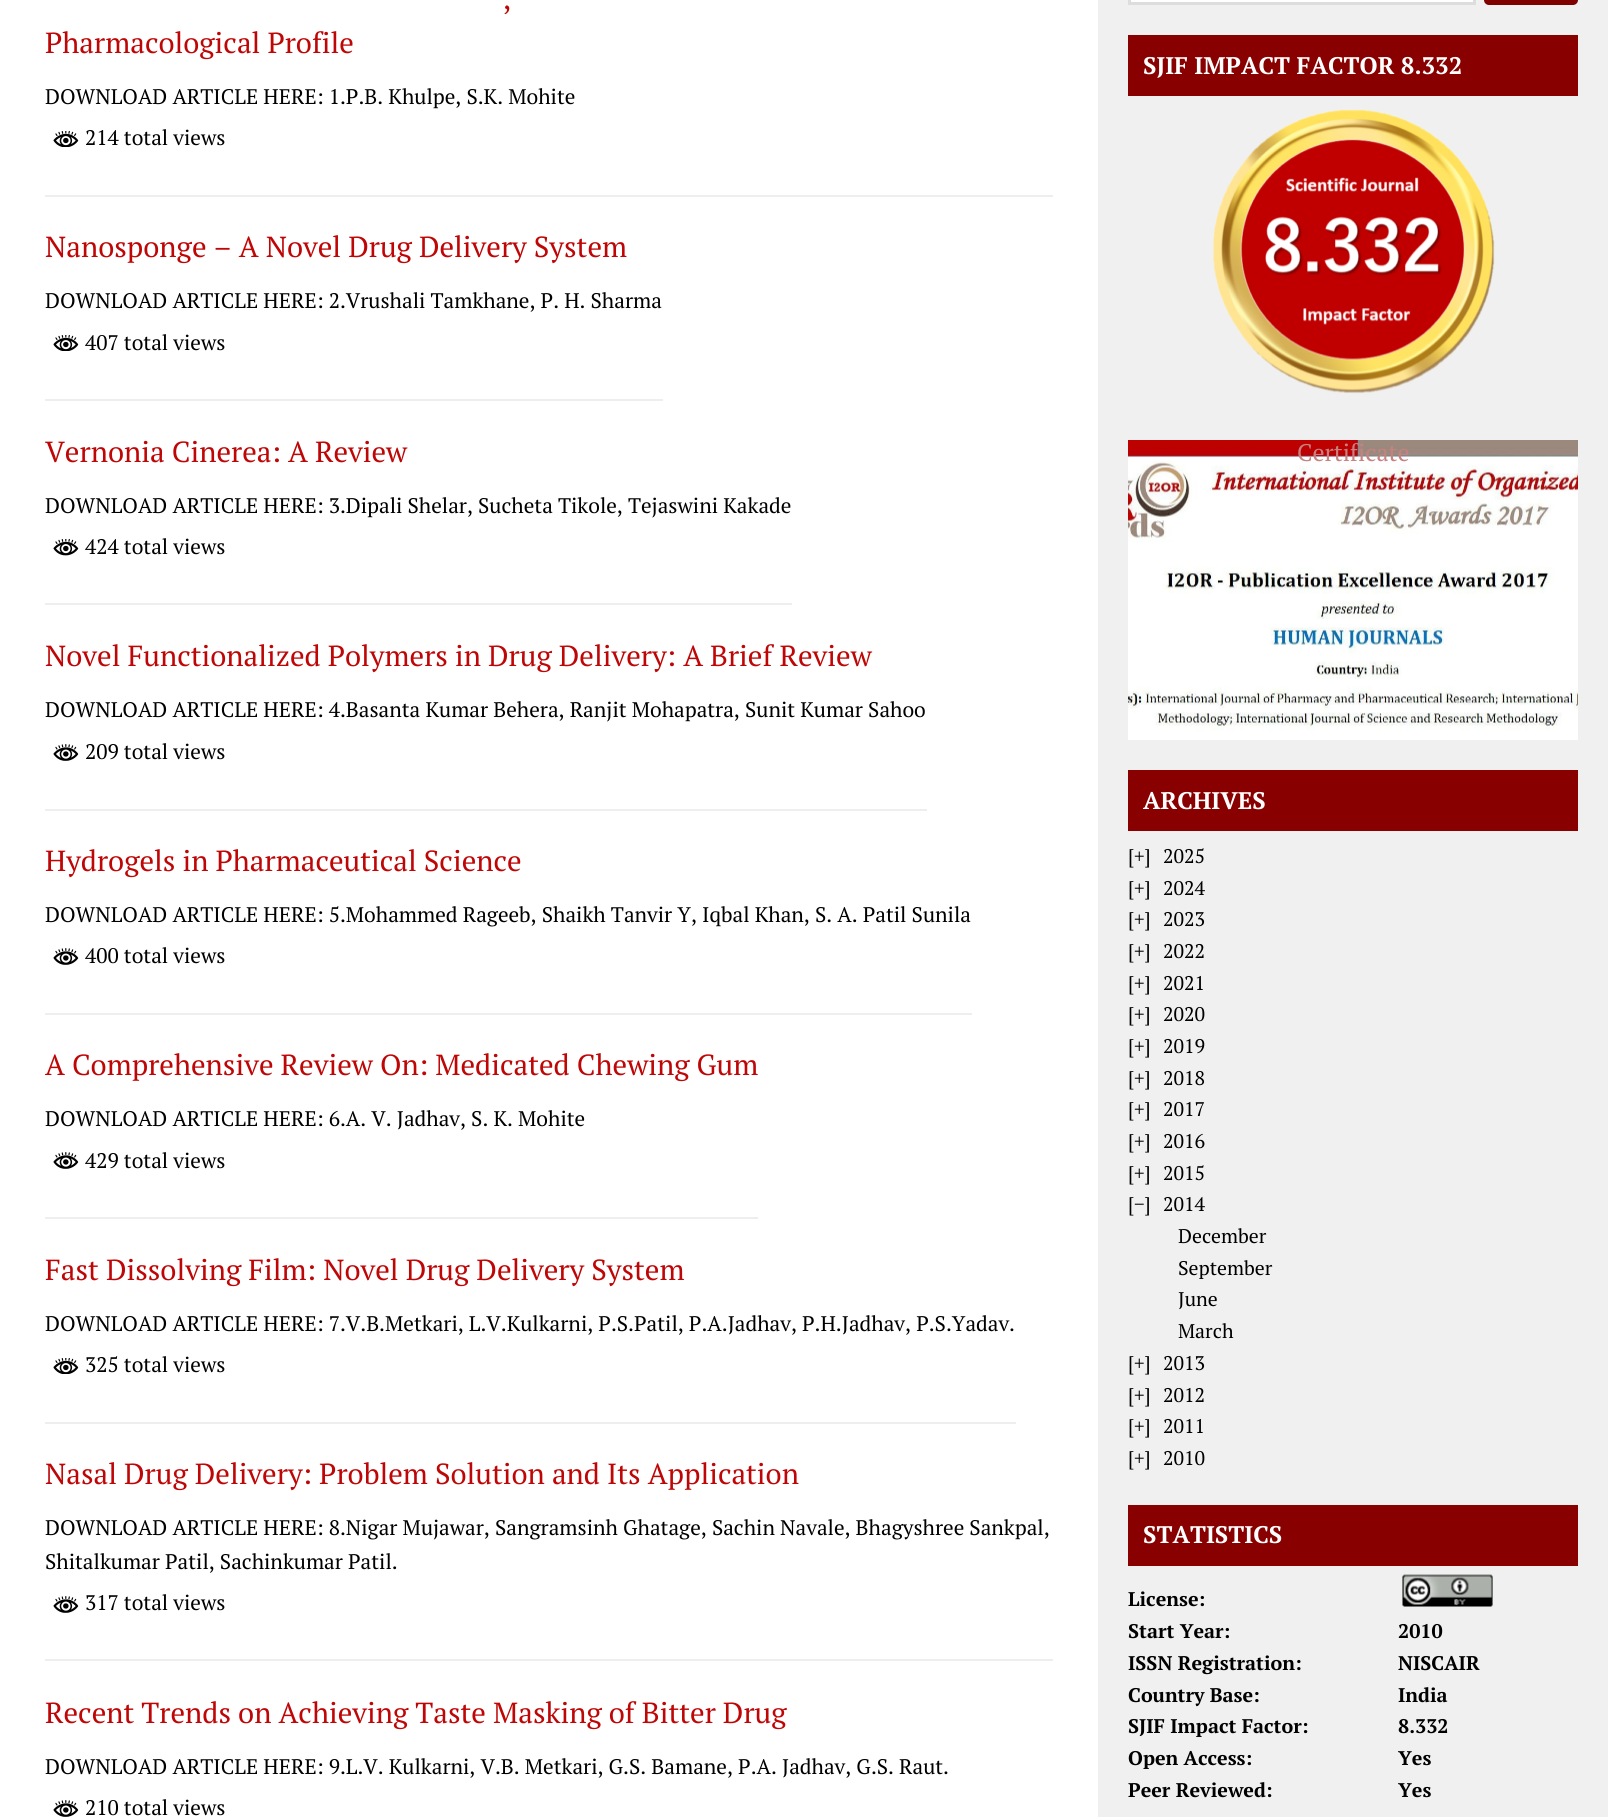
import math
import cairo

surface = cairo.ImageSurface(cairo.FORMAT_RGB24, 1608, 1817)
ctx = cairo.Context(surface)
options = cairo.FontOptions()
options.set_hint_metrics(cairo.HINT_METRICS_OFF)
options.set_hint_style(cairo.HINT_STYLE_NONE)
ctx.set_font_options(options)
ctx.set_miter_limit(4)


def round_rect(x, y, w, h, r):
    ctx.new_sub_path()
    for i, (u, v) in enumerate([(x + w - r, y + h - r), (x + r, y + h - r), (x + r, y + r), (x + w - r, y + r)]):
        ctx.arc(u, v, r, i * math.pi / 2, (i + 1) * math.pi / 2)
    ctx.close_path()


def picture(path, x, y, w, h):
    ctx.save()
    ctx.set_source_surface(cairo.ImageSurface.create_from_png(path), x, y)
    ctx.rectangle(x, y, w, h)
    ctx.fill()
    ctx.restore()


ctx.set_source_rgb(1, 1, 1)
ctx.paint()
ctx.set_source_rgb(0.941, 0.941, 0.941)
ctx.rectangle(1098, 0, 510, 1817)
ctx.fill()
ctx.set_source_rgb(0.933, 0.933, 0.933)
ctx.rectangle(45, 195, 1008, 2)
ctx.fill()
ctx.select_font_face("PT Serif")
ctx.set_font_size(29.05)
ctx.set_source_rgb(0.749, 0.027, 0.027)
ctx.move_to(503, 9)
ctx.show_text(",")
ctx.move_to(45, 53)
ctx.show_text("Pharmacological Profile")
ctx.set_font_size(21.1)
ctx.set_source_rgb(0, 0, 0)
ctx.move_to(45, 104)
ctx.show_text("DOWNLOAD ARTICLE HERE: 1.P.B. Khulpe, S.K. Mohite")
picture("img1.png", 53, 131, 26, 16)
ctx.move_to(85, 145)
ctx.show_text("214 total views")
ctx.set_source_rgb(0.933, 0.933, 0.933)
ctx.rectangle(45, 399, 618, 2)
ctx.fill()
ctx.set_font_size(29.05)
ctx.set_source_rgb(0.749, 0.027, 0.027)
ctx.move_to(45, 257)
ctx.show_text("Nanosponge – A Novel Drug Delivery System")
ctx.set_font_size(21.1)
ctx.set_source_rgb(0, 0, 0)
ctx.move_to(45, 308)
ctx.show_text("DOWNLOAD ARTICLE HERE: 2.Vrushali Tamkhane, P. H. Sharma")
picture("img1.png", 53, 335, 26, 16)
ctx.move_to(85, 350)
ctx.show_text("407 total views")
ctx.set_source_rgb(0.933, 0.933, 0.933)
ctx.rectangle(45, 603, 747, 2)
ctx.fill()
ctx.set_font_size(29.05)
ctx.set_source_rgb(0.749, 0.027, 0.027)
ctx.move_to(45, 462)
ctx.show_text("Vernonia Cinerea: A Review")
ctx.set_font_size(21.1)
ctx.set_source_rgb(0, 0, 0)
ctx.move_to(45, 513)
ctx.show_text("DOWNLOAD ARTICLE HERE: 3.Dipali Shelar, Sucheta Tikole, Tejaswini Kakade")
picture("img2.png", 53, 539, 26, 17)
ctx.move_to(85, 554)
ctx.show_text("424 total views")
ctx.set_source_rgb(0.933, 0.933, 0.933)
ctx.rectangle(45, 809, 882, 2)
ctx.fill()
ctx.set_font_size(29.05)
ctx.set_source_rgb(0.749, 0.027, 0.027)
ctx.move_to(45, 666)
ctx.show_text("Novel Functionalized Polymers in Drug Delivery: A Brief Review")
ctx.set_font_size(21.1)
ctx.set_source_rgb(0, 0, 0)
ctx.move_to(45, 717)
ctx.show_text("DOWNLOAD ARTICLE HERE: 4.Basanta Kumar Behera, Ranjit Mohapatra, Sunit Kumar Sahoo")
picture("img3.png", 53, 744, 26, 17)
ctx.move_to(85, 759)
ctx.show_text("209 total views")
ctx.set_source_rgb(0.933, 0.933, 0.933)
ctx.rectangle(45, 1013, 927, 2)
ctx.fill()
ctx.set_font_size(29.05)
ctx.set_source_rgb(0.749, 0.027, 0.027)
ctx.move_to(45, 871)
ctx.show_text("Hydrogels in Pharmaceutical Science")
ctx.set_font_size(21.1)
ctx.set_source_rgb(0, 0, 0)
ctx.move_to(45, 922)
ctx.show_text("DOWNLOAD ARTICLE HERE: 5.Mohammed Rageeb, Shaikh Tanvir Y, Iqbal Khan, S. A. Patil Sunila")
picture("img3.png", 53, 948, 26, 17)
ctx.move_to(85, 963)
ctx.show_text("400 total views")
ctx.set_source_rgb(0.933, 0.933, 0.933)
ctx.rectangle(45, 1217, 713, 2)
ctx.fill()
ctx.set_font_size(29.05)
ctx.set_source_rgb(0.749, 0.027, 0.027)
ctx.move_to(45, 1075)
ctx.show_text("A Comprehensive Review On: Medicated Chewing Gum")
ctx.set_font_size(21.1)
ctx.set_source_rgb(0, 0, 0)
ctx.move_to(45, 1126)
ctx.show_text("DOWNLOAD ARTICLE HERE: 6.A. V. Jadhav, S. K. Mohite")
picture("img3.png", 53, 1152, 26, 17)
ctx.move_to(85, 1168)
ctx.show_text("429 total views")
ctx.set_source_rgb(0.933, 0.933, 0.933)
ctx.rectangle(45, 1422, 971, 2)
ctx.fill()
ctx.set_font_size(29.05)
ctx.set_source_rgb(0.749, 0.027, 0.027)
ctx.move_to(45, 1280)
ctx.show_text("Fast Dissolving Film: Novel Drug Delivery System")
ctx.set_font_size(21.1)
ctx.set_source_rgb(0, 0, 0)
ctx.move_to(45, 1331)
ctx.show_text("DOWNLOAD ARTICLE HERE: 7.V.B.Metkari, L.V.Kulkarni, P.S.Patil, P.A.Jadhav, P.H.Jadhav, P.S.Yadav.")
picture("img1.png", 53, 1358, 26, 16)
ctx.move_to(85, 1372)
ctx.show_text("325 total views")
ctx.set_source_rgb(0.933, 0.933, 0.933)
ctx.rectangle(45, 1659, 1008, 2)
ctx.fill()
ctx.set_font_size(29.05)
ctx.set_source_rgb(0.749, 0.027, 0.027)
ctx.move_to(45, 1484)
ctx.show_text("Nasal Drug Delivery: Problem Solution and Its Application")
ctx.set_font_size(21.1)
ctx.set_source_rgb(0, 0, 0)
ctx.move_to(45, 1535)
ctx.show_text("DOWNLOAD ARTICLE HERE: 8.Nigar Mujawar, Sangramsinh Ghatage, Sachin Navale, Bhagyshree Sankpal,")
ctx.move_to(45, 1569)
ctx.show_text("Shitalkumar Patil, Sachinkumar Patil.")
picture("img3.png", 53, 1596, 26, 17)
ctx.move_to(85, 1610)
ctx.show_text("317 total views")
ctx.set_font_size(29.05)
ctx.set_source_rgb(0.749, 0.027, 0.027)
ctx.move_to(45, 1723)
ctx.show_text("Recent Trends on Achieving Taste Masking of Bitter Drug")
ctx.set_font_size(21.1)
ctx.set_source_rgb(0, 0, 0)
ctx.move_to(45, 1774)
ctx.show_text("DOWNLOAD ARTICLE HERE: 9.L.V. Kulkarni, V.B. Metkari, G.S. Bamane, P.A. Jadhav, G.S. Raut.")
picture("img3.png", 53, 1800, 26, 17)
ctx.move_to(85, 1815)
ctx.show_text("210 total views")
ctx.set_source_rgb(1, 1, 1)
ctx.rectangle(1129.5, -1.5, 345, 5)
ctx.fill_preserve()
ctx.set_source_rgb(0.867, 0.867, 0.867)
ctx.set_line_width(3)
ctx.stroke()
ctx.set_source_rgb(0.502, 0, 0)
round_rect(1484, -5, 94, 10, 5)
ctx.fill()
ctx.set_source_rgb(0.533, 0, 0)
ctx.rectangle(1128, 35, 450, 61)
ctx.fill()
ctx.select_font_face("PT Serif", cairo.FONT_SLANT_NORMAL, cairo.FONT_WEIGHT_BOLD)
ctx.set_font_size(24)
ctx.set_source_rgb(1, 1, 1)
ctx.move_to(1143, 74)
ctx.show_text("SJIF IMPACT FACTOR 8.332")
picture("img4.png", 1213, 109, 282, 285)
picture("img5.png", 1128, 440, 450, 300)
ctx.select_font_face("PT Serif")
ctx.set_source_rgb(0.78, 0.506, 0.502)
ctx.move_to(1297, 461)
ctx.show_text("Certificate")
ctx.set_source_rgb(0.533, 0, 0)
ctx.rectangle(1128, 770, 450, 61)
ctx.fill()
ctx.select_font_face("PT Serif", cairo.FONT_SLANT_NORMAL, cairo.FONT_WEIGHT_BOLD)
ctx.set_source_rgb(1, 1, 1)
ctx.move_to(1143, 809)
ctx.show_text("ARCHIVES")
ctx.select_font_face("PT Serif")
ctx.set_font_size(19.75)
ctx.set_source_rgb(0, 0, 0)
ctx.move_to(1128, 863)
ctx.show_text("[+]")
ctx.move_to(1163, 863)
ctx.show_text("2025")
ctx.move_to(1128, 895)
ctx.show_text("[+]")
ctx.move_to(1163, 895)
ctx.show_text("2024")
ctx.move_to(1128, 926)
ctx.show_text("[+]")
ctx.move_to(1163, 926)
ctx.show_text("2023")
ctx.move_to(1128, 958)
ctx.show_text("[+]")
ctx.move_to(1163, 958)
ctx.show_text("2022")
ctx.move_to(1128, 990)
ctx.show_text("[+]")
ctx.move_to(1163, 990)
ctx.show_text("2021")
ctx.move_to(1128, 1021)
ctx.show_text("[+]")
ctx.move_to(1163, 1021)
ctx.show_text("2020")
ctx.move_to(1128, 1053)
ctx.show_text("[+]")
ctx.move_to(1163, 1053)
ctx.show_text("2019")
ctx.move_to(1128, 1085)
ctx.show_text("[+]")
ctx.move_to(1163, 1085)
ctx.show_text("2018")
ctx.move_to(1128, 1116)
ctx.show_text("[+]")
ctx.move_to(1163, 1116)
ctx.show_text("2017")
ctx.move_to(1128, 1148)
ctx.show_text("[+]")
ctx.move_to(1163, 1148)
ctx.show_text("2016")
ctx.move_to(1128, 1180)
ctx.show_text("[+]")
ctx.move_to(1163, 1180)
ctx.show_text("2015")
ctx.move_to(1128, 1211)
ctx.show_text("[−]")
ctx.move_to(1163, 1211)
ctx.show_text("2014")
ctx.move_to(1178, 1243)
ctx.show_text("December")
ctx.move_to(1178, 1275)
ctx.show_text("September")
ctx.move_to(1178, 1306)
ctx.show_text("June")
ctx.move_to(1178, 1338)
ctx.show_text("March")
ctx.move_to(1128, 1370)
ctx.show_text("[+]")
ctx.move_to(1163, 1370)
ctx.show_text("2013")
ctx.move_to(1128, 1402)
ctx.show_text("[+]")
ctx.move_to(1163, 1402)
ctx.show_text("2012")
ctx.move_to(1128, 1433)
ctx.show_text("[+]")
ctx.move_to(1163, 1433)
ctx.show_text("2011")
ctx.move_to(1128, 1465)
ctx.show_text("[+]")
ctx.move_to(1163, 1465)
ctx.show_text("2010")
ctx.set_source_rgb(0.533, 0, 0)
ctx.rectangle(1128, 1505, 450, 61)
ctx.fill()
ctx.select_font_face("PT Serif", cairo.FONT_SLANT_NORMAL, cairo.FONT_WEIGHT_BOLD)
ctx.set_font_size(24)
ctx.set_source_rgb(1, 1, 1)
ctx.move_to(1143, 1543)
ctx.show_text("STATISTICS")
ctx.set_font_size(19.75)
ctx.set_source_rgb(0, 0, 0)
ctx.move_to(1128, 1606)
ctx.show_text("License:")
picture("img6.png", 1402, 1574, 91, 33)
ctx.move_to(1128, 1638)
ctx.show_text("Start Year:")
ctx.move_to(1398, 1638)
ctx.show_text("2010")
ctx.move_to(1128, 1670)
ctx.show_text("ISSN Registration:")
ctx.move_to(1398, 1670)
ctx.show_text("NISCAIR")
ctx.move_to(1128, 1702)
ctx.show_text("Country Base:")
ctx.move_to(1398, 1702)
ctx.show_text("India")
ctx.move_to(1128, 1733)
ctx.show_text("SJIF Impact Factor:")
ctx.move_to(1398, 1733)
ctx.show_text("8.332")
ctx.move_to(1128, 1765)
ctx.show_text("Open Access:")
ctx.move_to(1398, 1765)
ctx.show_text("Yes")
ctx.move_to(1128, 1797)
ctx.show_text("Peer Reviewed:")
ctx.move_to(1398, 1797)
ctx.show_text("Yes")
surface.write_to_png("page.png")
